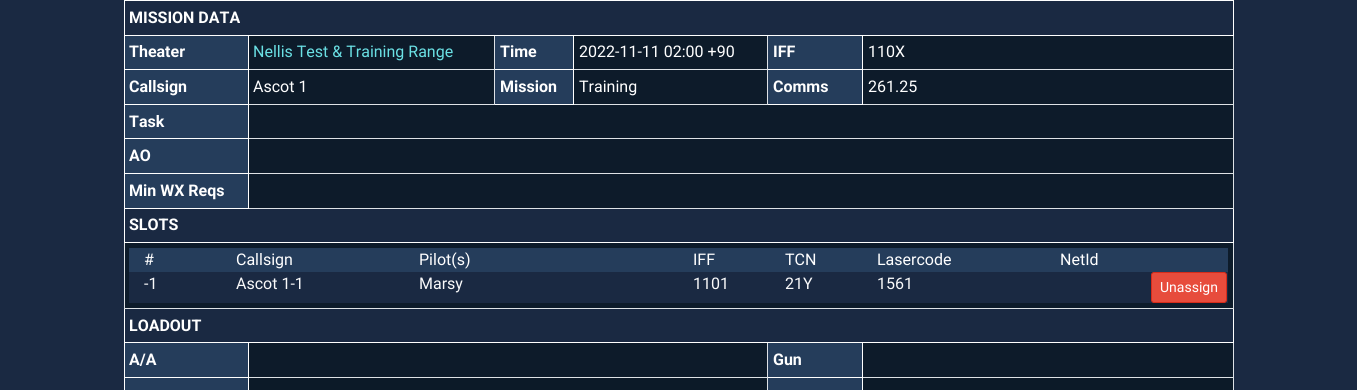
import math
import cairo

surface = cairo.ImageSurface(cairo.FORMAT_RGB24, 1357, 390)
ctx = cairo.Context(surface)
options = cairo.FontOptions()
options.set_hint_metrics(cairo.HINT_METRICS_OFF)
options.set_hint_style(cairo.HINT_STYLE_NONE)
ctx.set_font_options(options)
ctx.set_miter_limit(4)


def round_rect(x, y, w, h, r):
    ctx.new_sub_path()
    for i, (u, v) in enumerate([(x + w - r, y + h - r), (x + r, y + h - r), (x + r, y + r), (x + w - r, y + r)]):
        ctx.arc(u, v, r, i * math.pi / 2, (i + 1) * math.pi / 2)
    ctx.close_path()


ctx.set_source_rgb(0.102, 0.161, 0.259)
ctx.paint()
ctx.set_source_rgb(0.051, 0.106, 0.165)
ctx.rectangle(125, 36, 1108, 341)
ctx.fill()
ctx.set_source_rgb(1, 1, 1)
ctx.rectangle(124, 0, 1110, 1)
ctx.fill()
ctx.rectangle(124, 0, 1, 390)
ctx.fill()
ctx.set_source_rgb(0.871, 0.886, 0.902)
ctx.rectangle(574, 104, 660, 1)
ctx.fill()
ctx.rectangle(1233, 342, 1, 48)
ctx.fill()
ctx.set_source_rgb(1, 1, 1)
ctx.rectangle(1233, 308, 1, 35)
ctx.fill()
ctx.set_source_rgb(0.871, 0.886, 0.902)
ctx.rectangle(1233, 242, 1, 67)
ctx.fill()
ctx.set_source_rgb(1, 1, 1)
ctx.rectangle(1233, 208, 1, 35)
ctx.fill()
ctx.set_source_rgb(0.871, 0.886, 0.902)
ctx.rectangle(1233, 138, 1, 71)
ctx.fill()
ctx.rectangle(1233, 35, 1, 104)
ctx.fill()
ctx.set_source_rgb(1, 1, 1)
ctx.rectangle(1233, 0, 1, 36)
ctx.fill()
ctx.rectangle(862, 69, 1, 36)
ctx.fill()
ctx.set_source_rgb(0.871, 0.886, 0.902)
ctx.rectangle(862, 69, 372, 1)
ctx.fill()
ctx.set_source_rgb(1, 1, 1)
ctx.rectangle(862, 35, 1, 35)
ctx.fill()
ctx.rectangle(767, 104, 96, 1)
ctx.fill()
ctx.set_source_rgb(0.871, 0.886, 0.902)
ctx.rectangle(767, 69, 1, 36)
ctx.fill()
ctx.set_source_rgb(1, 1, 1)
ctx.rectangle(767, 69, 96, 1)
ctx.fill()
ctx.set_source_rgb(0.871, 0.886, 0.902)
ctx.rectangle(767, 35, 1, 35)
ctx.fill()
ctx.set_source_rgb(1, 1, 1)
ctx.rectangle(573, 69, 1, 36)
ctx.fill()
ctx.set_source_rgb(0.871, 0.886, 0.902)
ctx.rectangle(573, 69, 195, 1)
ctx.fill()
ctx.set_source_rgb(1, 1, 1)
ctx.rectangle(573, 35, 1, 35)
ctx.fill()
ctx.rectangle(494, 104, 80, 1)
ctx.fill()
ctx.set_source_rgb(0.871, 0.886, 0.902)
ctx.rectangle(494, 69, 1, 36)
ctx.fill()
ctx.set_source_rgb(1, 1, 1)
ctx.rectangle(494, 69, 80, 1)
ctx.fill()
ctx.set_source_rgb(0.871, 0.886, 0.902)
ctx.rectangle(494, 35, 1, 35)
ctx.fill()
ctx.set_source_rgb(1, 1, 1)
ctx.rectangle(124, 69, 125, 1)
ctx.fill()
ctx.rectangle(124, 104, 125, 1)
ctx.fill()
ctx.rectangle(124, 138, 125, 1)
ctx.fill()
ctx.rectangle(124, 173, 125, 1)
ctx.fill()
ctx.set_source_rgb(0.871, 0.886, 0.902)
ctx.rectangle(248, 208, 986, 1)
ctx.fill()
ctx.set_source_rgb(1, 1, 1)
ctx.rectangle(248, 173, 1, 36)
ctx.fill()
ctx.set_source_rgb(0.871, 0.886, 0.902)
ctx.rectangle(248, 173, 986, 1)
ctx.fill()
ctx.set_source_rgb(1, 1, 1)
ctx.rectangle(248, 138, 1, 36)
ctx.fill()
ctx.set_source_rgb(0.871, 0.886, 0.902)
ctx.rectangle(248, 138, 986, 1)
ctx.fill()
ctx.set_source_rgb(1, 1, 1)
ctx.rectangle(248, 104, 1, 35)
ctx.fill()
ctx.set_source_rgb(0.871, 0.886, 0.902)
ctx.rectangle(248, 104, 247, 1)
ctx.fill()
ctx.set_source_rgb(1, 1, 1)
ctx.rectangle(248, 69, 1, 36)
ctx.fill()
ctx.set_source_rgb(0.871, 0.886, 0.902)
ctx.rectangle(248, 69, 247, 1)
ctx.fill()
ctx.set_source_rgb(1, 1, 1)
ctx.rectangle(248, 35, 1, 35)
ctx.fill()
ctx.rectangle(124, 35, 1110, 1)
ctx.fill()
ctx.select_font_face("Roboto", cairo.FONT_SLANT_NORMAL, cairo.FONT_WEIGHT_BOLD)
ctx.set_font_size(16)
ctx.move_to(129, 23)
ctx.show_text("MISSION DATA")
ctx.set_source_rgb(0.145, 0.239, 0.357)
ctx.rectangle(125, 36, 123, 33)
ctx.fill()
ctx.set_source_rgb(1, 1, 1)
ctx.move_to(129, 57)
ctx.show_text("Theater")
ctx.select_font_face("Roboto")
ctx.set_source_rgb(0.416, 0.878, 0.894)
ctx.move_to(253, 57)
ctx.show_text("Nellis Test & Training Range")
ctx.set_source_rgb(0.145, 0.239, 0.357)
ctx.rectangle(495, 36, 78, 33)
ctx.fill()
ctx.select_font_face("Roboto", cairo.FONT_SLANT_NORMAL, cairo.FONT_WEIGHT_BOLD)
ctx.set_source_rgb(1, 1, 1)
ctx.move_to(500, 57)
ctx.show_text("Time")
ctx.select_font_face("Roboto")
ctx.move_to(579, 57)
ctx.show_text("2022-11-11 02:00 +90")
ctx.set_source_rgb(0.145, 0.239, 0.357)
ctx.rectangle(768, 36, 94, 33)
ctx.fill()
ctx.select_font_face("Roboto", cairo.FONT_SLANT_NORMAL, cairo.FONT_WEIGHT_BOLD)
ctx.set_source_rgb(1, 1, 1)
ctx.move_to(773, 57)
ctx.show_text("IFF")
ctx.select_font_face("Roboto")
ctx.move_to(868, 57)
ctx.show_text("110X")
ctx.set_source_rgb(0.145, 0.239, 0.357)
ctx.rectangle(125, 70, 123, 34)
ctx.fill()
ctx.select_font_face("Roboto", cairo.FONT_SLANT_NORMAL, cairo.FONT_WEIGHT_BOLD)
ctx.set_source_rgb(1, 1, 1)
ctx.move_to(129, 92)
ctx.show_text("Callsign")
ctx.select_font_face("Roboto")
ctx.move_to(253, 92)
ctx.show_text("Ascot 1")
ctx.set_source_rgb(0.145, 0.239, 0.357)
ctx.rectangle(495, 70, 78, 34)
ctx.fill()
ctx.select_font_face("Roboto", cairo.FONT_SLANT_NORMAL, cairo.FONT_WEIGHT_BOLD)
ctx.set_source_rgb(1, 1, 1)
ctx.move_to(500, 92)
ctx.show_text("Mission")
ctx.select_font_face("Roboto")
ctx.move_to(579, 92)
ctx.show_text("Training")
ctx.set_source_rgb(0.145, 0.239, 0.357)
ctx.rectangle(768, 70, 94, 34)
ctx.fill()
ctx.select_font_face("Roboto", cairo.FONT_SLANT_NORMAL, cairo.FONT_WEIGHT_BOLD)
ctx.set_source_rgb(1, 1, 1)
ctx.move_to(773, 92)
ctx.show_text("Comms")
ctx.select_font_face("Roboto")
ctx.move_to(868, 92)
ctx.show_text("261.25")
ctx.set_source_rgb(0.145, 0.239, 0.357)
ctx.rectangle(125, 105, 123, 33)
ctx.fill()
ctx.select_font_face("Roboto", cairo.FONT_SLANT_NORMAL, cairo.FONT_WEIGHT_BOLD)
ctx.set_source_rgb(1, 1, 1)
ctx.move_to(129, 127)
ctx.show_text("Task")
ctx.set_source_rgb(0.145, 0.239, 0.357)
ctx.rectangle(125, 139, 123, 34)
ctx.fill()
ctx.set_source_rgb(1, 1, 1)
ctx.move_to(129, 161)
ctx.show_text("AO")
ctx.set_source_rgb(0.145, 0.239, 0.357)
ctx.rectangle(125, 174, 123, 34)
ctx.fill()
ctx.set_source_rgb(1, 1, 1)
ctx.move_to(129, 196)
ctx.show_text("Min WX Reqs")
ctx.set_source_rgb(0.102, 0.161, 0.259)
ctx.rectangle(125, 209, 1108, 33)
ctx.fill()
ctx.set_source_rgb(1, 1, 1)
ctx.rectangle(124, 208, 124, 1)
ctx.fill()
ctx.set_source_rgb(0.871, 0.886, 0.902)
ctx.rectangle(124, 308, 1110, 1)
ctx.fill()
ctx.rectangle(124, 242, 1, 67)
ctx.fill()
ctx.set_source_rgb(1, 1, 1)
ctx.rectangle(124, 242, 1110, 1)
ctx.fill()
ctx.move_to(129, 230)
ctx.show_text("SLOTS")
ctx.set_source_rgb(0.102, 0.161, 0.259)
ctx.rectangle(129, 272, 1099, 31)
ctx.fill()
ctx.set_source_rgb(0.145, 0.239, 0.357)
ctx.rectangle(129, 248, 1099, 24)
ctx.fill()
ctx.select_font_face("Roboto")
ctx.set_source_rgb(1, 1, 1)
ctx.move_to(144, 265)
ctx.show_text("#")
ctx.move_to(236, 265)
ctx.show_text("Callsign")
ctx.move_to(419, 265)
ctx.show_text("Pilot(s)")
ctx.move_to(693, 265)
ctx.show_text("IFF")
ctx.move_to(785, 265)
ctx.show_text("TCN")
ctx.move_to(877, 265)
ctx.show_text("Lasercode")
ctx.move_to(1060, 265)
ctx.show_text("NetId")
ctx.set_source_rgb(0.973, 0.976, 0.98)
ctx.move_to(144, 289)
ctx.show_text("-1")
ctx.move_to(236, 289)
ctx.show_text("Ascot 1-1")
ctx.move_to(419, 289)
ctx.show_text("Marsy")
ctx.move_to(693, 289)
ctx.show_text("1101")
ctx.move_to(785, 289)
ctx.show_text("21Y")
ctx.move_to(877, 289)
ctx.show_text("1561")
ctx.set_source_rgb(0.906, 0.298, 0.235)
round_rect(1151.5, 272.5, 75, 30, 2.5)
ctx.fill_preserve()
ctx.set_source_rgb(0.839, 0.173, 0.102)
ctx.set_line_width(1)
ctx.stroke()
ctx.set_font_size(14)
ctx.set_source_rgb(1, 1, 1)
ctx.move_to(1160, 292)
ctx.show_text("Unassign")
ctx.set_source_rgb(0.102, 0.161, 0.259)
ctx.rectangle(125, 309, 1108, 33)
ctx.fill()
ctx.set_source_rgb(1, 1, 1)
ctx.rectangle(124, 377, 125, 1)
ctx.fill()
ctx.rectangle(248, 377, 1, 13)
ctx.fill()
ctx.set_source_rgb(0.047, 0.102, 0.157)
ctx.rectangle(249, 378, 984, 12)
ctx.fill()
ctx.set_source_rgb(0.871, 0.886, 0.902)
ctx.rectangle(767, 377, 1, 13)
ctx.fill()
ctx.set_source_rgb(1, 1, 1)
ctx.rectangle(862, 377, 1, 13)
ctx.fill()
ctx.set_source_rgb(0.871, 0.886, 0.902)
ctx.rectangle(862, 377, 372, 1)
ctx.fill()
ctx.set_source_rgb(1, 1, 1)
ctx.rectangle(862, 342, 1, 36)
ctx.fill()
ctx.rectangle(767, 377, 96, 1)
ctx.fill()
ctx.set_source_rgb(0.871, 0.886, 0.902)
ctx.rectangle(767, 342, 1, 36)
ctx.fill()
ctx.rectangle(248, 377, 520, 1)
ctx.fill()
ctx.set_source_rgb(1, 1, 1)
ctx.rectangle(248, 342, 1, 36)
ctx.fill()
ctx.rectangle(124, 342, 1110, 1)
ctx.fill()
ctx.select_font_face("Roboto", cairo.FONT_SLANT_NORMAL, cairo.FONT_WEIGHT_BOLD)
ctx.set_font_size(16)
ctx.move_to(129, 331)
ctx.show_text("LOADOUT")
ctx.set_source_rgb(0.145, 0.239, 0.357)
ctx.rectangle(125, 378, 123, 12)
ctx.fill()
ctx.rectangle(768, 378, 94, 12)
ctx.fill()
ctx.rectangle(125, 343, 123, 34)
ctx.fill()
ctx.set_source_rgb(1, 1, 1)
ctx.move_to(129, 365)
ctx.show_text("A/A")
ctx.set_source_rgb(0.145, 0.239, 0.357)
ctx.rectangle(768, 343, 94, 34)
ctx.fill()
ctx.set_source_rgb(1, 1, 1)
ctx.move_to(773, 365)
ctx.show_text("Gun")
surface.write_to_png("page.png")
